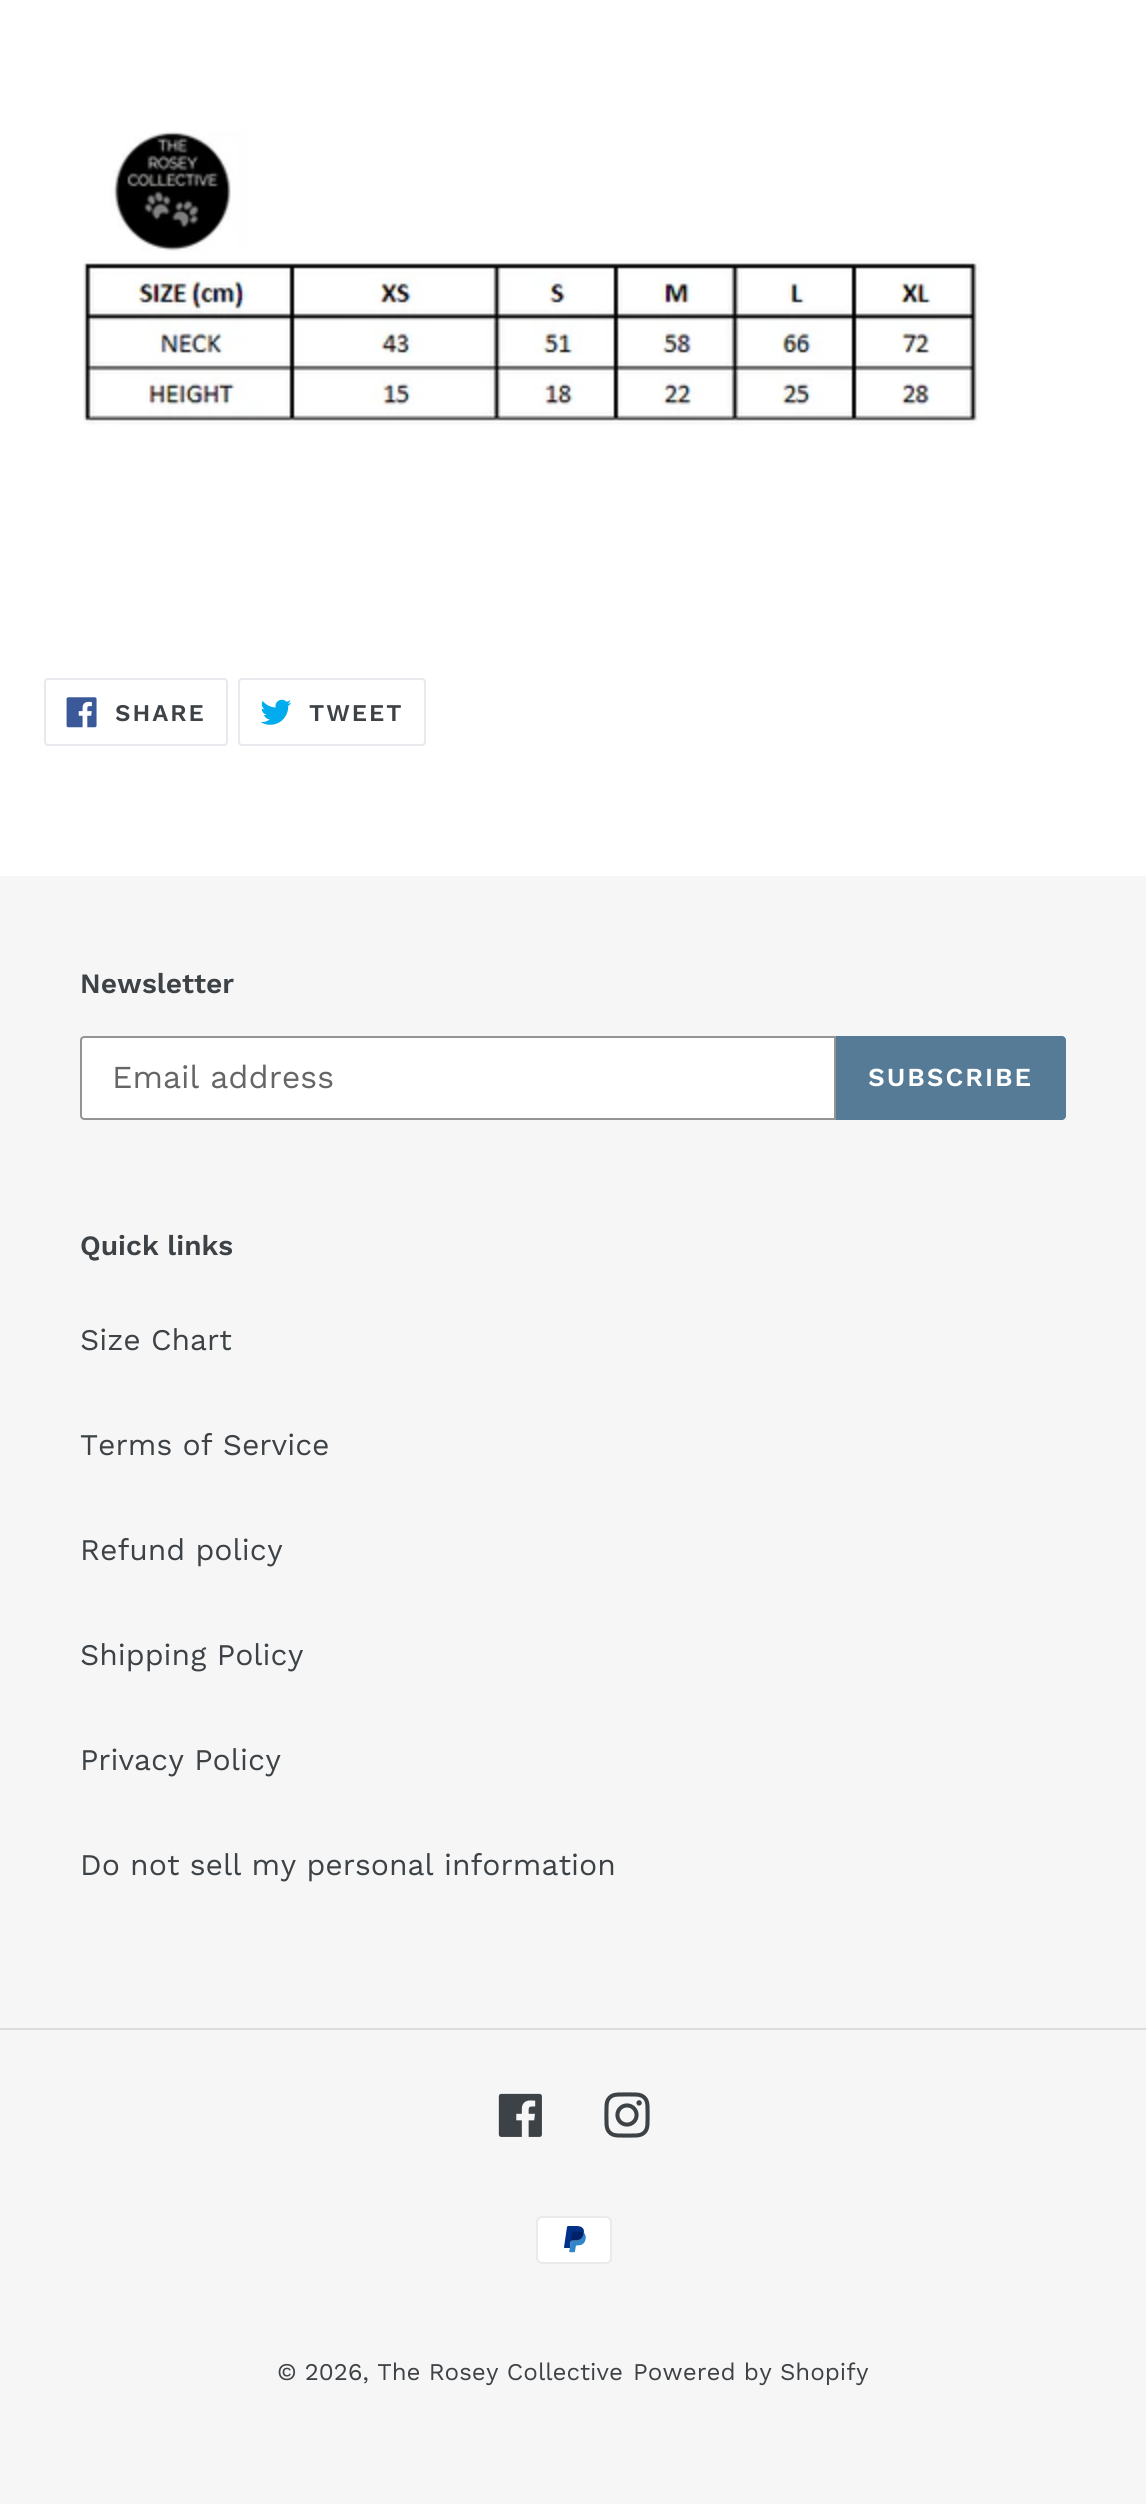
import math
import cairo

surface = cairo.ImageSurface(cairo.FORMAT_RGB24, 1146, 2504)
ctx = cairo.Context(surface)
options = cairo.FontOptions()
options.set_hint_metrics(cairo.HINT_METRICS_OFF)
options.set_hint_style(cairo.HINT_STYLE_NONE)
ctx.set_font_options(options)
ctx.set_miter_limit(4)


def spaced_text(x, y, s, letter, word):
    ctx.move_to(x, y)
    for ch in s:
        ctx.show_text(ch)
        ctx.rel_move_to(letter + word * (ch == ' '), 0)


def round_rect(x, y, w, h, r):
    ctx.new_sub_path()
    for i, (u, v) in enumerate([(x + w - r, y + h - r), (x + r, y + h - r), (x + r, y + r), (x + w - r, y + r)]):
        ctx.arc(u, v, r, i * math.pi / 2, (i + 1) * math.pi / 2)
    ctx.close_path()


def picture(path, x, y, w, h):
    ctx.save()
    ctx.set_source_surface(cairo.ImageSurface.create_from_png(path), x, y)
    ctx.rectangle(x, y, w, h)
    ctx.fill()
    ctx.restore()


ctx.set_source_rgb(1, 1, 1)
ctx.paint()
picture("img1.png", 83, 130, 898, 295)
round_rect(45, 679, 182, 66, 3)
ctx.set_source_rgb(0.91, 0.914, 0.922)
ctx.stroke()
picture("img2.png", 66, 697, 31, 31)
ctx.select_font_face("Work Sans SemiBold")
ctx.set_font_size(24)
ctx.set_source_rgb(0.239, 0.259, 0.275)
spaced_text(115, 721, "SHARE", 2, 0)
round_rect(239, 679, 186, 66, 3)
ctx.set_source_rgb(0.91, 0.914, 0.922)
ctx.stroke()
picture("img3.png", 260, 699, 32, 26)
ctx.set_source_rgb(0.239, 0.259, 0.275)
spaced_text(309, 721, "TWEET", 2, 0)
ctx.set_source_rgb(0.961, 0.961, 0.961)
ctx.rectangle(0, 876, 1146, 1628)
ctx.fill()
ctx.set_font_size(28)
ctx.set_source_rgb(0.239, 0.259, 0.275)
ctx.move_to(80, 993)
ctx.show_text("Newsletter")
ctx.set_source_rgb(1, 1, 1)
ctx.new_path()
ctx.move_to(84, 1037)
ctx.line_to(835, 1037)
ctx.line_to(835, 1119)
ctx.line_to(84, 1119)
ctx.curve_to(82.5, 1119, 81, 1117.5, 81, 1116)
ctx.line_to(81, 1040)
ctx.curve_to(81, 1038.5, 82.5, 1037, 84, 1037)
ctx.close_path()
ctx.fill_preserve()
ctx.set_source_rgb(0.58, 0.58, 0.58)
ctx.stroke()
ctx.select_font_face("Work Sans")
ctx.set_font_size(32)
ctx.set_source_rgb(0.4, 0.4, 0.4)
ctx.move_to(112, 1088)
ctx.show_text("Email address")
ctx.set_source_rgb(0.333, 0.482, 0.592)
ctx.new_path()
ctx.move_to(836, 1036)
ctx.line_to(1062, 1036)
ctx.curve_to(1064, 1036, 1066, 1038, 1066, 1040)
ctx.line_to(1066, 1116)
ctx.curve_to(1066, 1118, 1064, 1120, 1062, 1120)
ctx.line_to(836, 1120)
ctx.close_path()
ctx.fill()
ctx.select_font_face("Work Sans SemiBold")
ctx.set_font_size(26)
ctx.set_source_rgb(1, 1, 1)
spaced_text(868, 1086, "SUBSCRIBE", 2, 0)
ctx.set_font_size(28)
ctx.set_source_rgb(0.239, 0.259, 0.275)
ctx.move_to(80, 1255)
ctx.show_text("Quick links")
ctx.select_font_face("Work Sans")
ctx.set_font_size(30)
ctx.move_to(80, 1350)
ctx.show_text("Size Chart")
ctx.move_to(80, 1455)
ctx.show_text("Terms of Service")
ctx.move_to(80, 1560)
ctx.show_text("Refund policy")
ctx.move_to(80, 1665)
ctx.show_text("Shipping Policy")
ctx.move_to(80, 1770)
ctx.show_text("Privacy Policy")
ctx.move_to(80, 1875)
ctx.show_text("Do not sell my personal information")
ctx.set_source_rgb(0.863, 0.863, 0.863)
ctx.rectangle(0, 2028, 1146, 2)
ctx.fill()
picture("img4.png", 498, 2093, 44, 44)
picture("img5.png", 604, 2092, 46, 46)
picture("img6.png", 536, 2216, 76, 48)
ctx.set_font_size(24)
ctx.set_source_rgb(0.239, 0.259, 0.275)
ctx.move_to(277, 2380)
ctx.show_text("© 2026, The Rosey Collective")
ctx.move_to(633, 2380)
ctx.show_text("Powered by Shopify")
surface.write_to_png("page.png")
